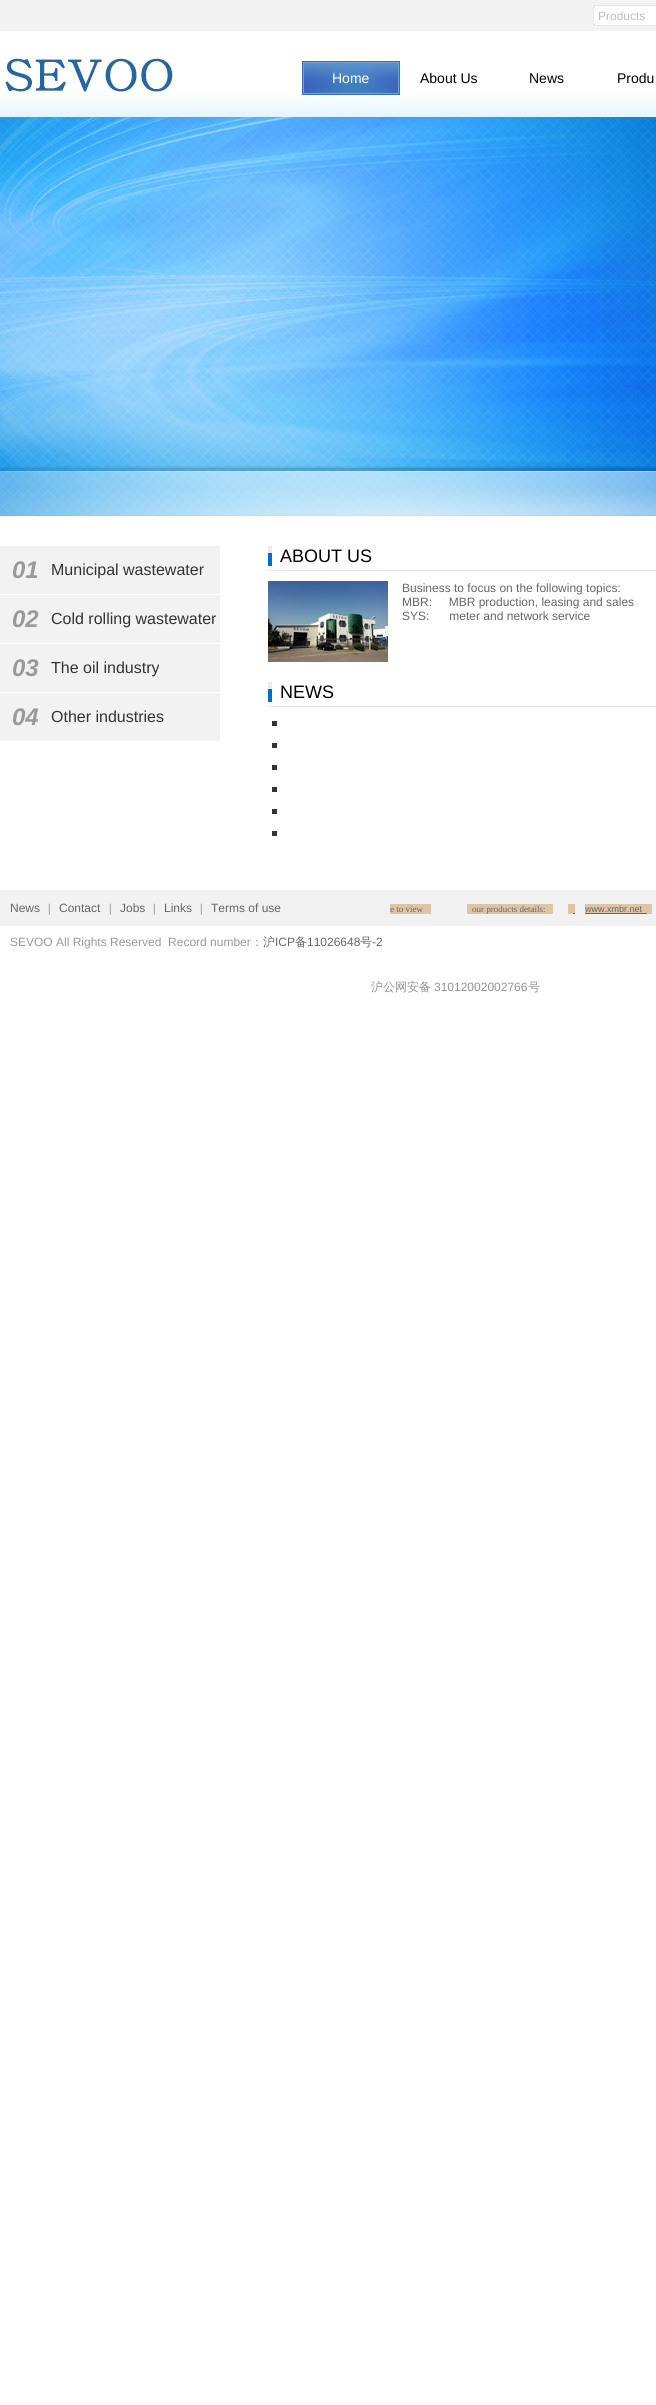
import math
import cairo

surface = cairo.ImageSurface(cairo.FORMAT_RGB24, 656, 2405)
ctx = cairo.Context(surface)
options = cairo.FontOptions()
options.set_hint_metrics(cairo.HINT_METRICS_OFF)
options.set_hint_style(cairo.HINT_STYLE_NONE)
ctx.set_font_options(options)
ctx.set_miter_limit(4)


def round_rect(x, y, w, h, r):
    ctx.new_sub_path()
    for i, (u, v) in enumerate([(x + w - r, y + h - r), (x + r, y + h - r), (x + r, y + r), (x + w - r, y + r)]):
        ctx.arc(u, v, r, i * math.pi / 2, (i + 1) * math.pi / 2)
    ctx.close_path()


def picture(path, x, y, w, h):
    ctx.save()
    ctx.set_source_surface(cairo.ImageSurface.create_from_png(path), x, y)
    ctx.rectangle(x, y, w, h)
    ctx.fill()
    ctx.restore()


ctx.set_source_rgb(1, 1, 1)
ctx.paint()
ctx.set_source_rgb(0.953, 0.953, 0.953)
ctx.rectangle(0, 0, 656, 31)
ctx.fill()
ctx.rectangle(593.5, 5.5, 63, 20)
ctx.set_source_rgb(0.906, 0.906, 0.906)
ctx.set_line_width(1)
ctx.stroke()
ctx.save()
ctx.rectangle(594, 6, 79, 19)
ctx.clip()
ctx.set_source_rgb(1, 1, 1)
round_rect(593.5, 5.5, 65, 20, 1.5)
ctx.fill_preserve()
ctx.set_source_rgb(0.463, 0.463, 0.463)
ctx.stroke()
ctx.restore()
ctx.select_font_face("Liberation Sans")
ctx.set_font_size(12)
ctx.set_source_rgb(0.749, 0.749, 0.749)
ctx.move_to(598, 20)
ctx.show_text("Products")
picture("img1.png", 0, 95, 656, 22)
picture("img2.png", 4, 58, 169, 36)
picture("img3.png", 302, 61, 98, 34)
ctx.set_font_size(14)
ctx.set_source_rgb(1, 1, 1)
ctx.move_to(332, 83)
ctx.show_text("Home")
ctx.set_source_rgb(0, 0, 0)
ctx.move_to(420, 83)
ctx.show_text("About Us")
ctx.move_to(529, 83)
ctx.show_text("News")
ctx.move_to(617, 83)
ctx.show_text("Produ")
picture("img4.png", 0, 117, 656, 399)
picture("img5.png", 0, 466, 656, 50)
ctx.set_source_rgb(0.949, 0.949, 0.949)
ctx.rectangle(0, 546, 220, 48)
ctx.fill()
ctx.select_font_face("Liberation Sans", cairo.FONT_SLANT_ITALIC, cairo.FONT_WEIGHT_BOLD)
ctx.set_font_size(24)
ctx.set_source_rgb(0.6, 0.6, 0.6)
ctx.move_to(12, 578)
ctx.show_text("01")
ctx.select_font_face("Liberation Sans")
ctx.set_font_size(16)
ctx.set_source_rgb(0.2, 0.2, 0.2)
ctx.move_to(51, 575)
ctx.show_text("Municipal wastewater")
ctx.set_source_rgb(0.949, 0.949, 0.949)
ctx.rectangle(0, 595, 220, 48)
ctx.fill()
ctx.select_font_face("Liberation Sans", cairo.FONT_SLANT_ITALIC, cairo.FONT_WEIGHT_BOLD)
ctx.set_font_size(24)
ctx.set_source_rgb(0.6, 0.6, 0.6)
ctx.move_to(12, 627)
ctx.show_text("02")
ctx.select_font_face("Liberation Sans")
ctx.set_font_size(16)
ctx.set_source_rgb(0.2, 0.2, 0.2)
ctx.move_to(51, 624)
ctx.show_text("Cold rolling wastewater")
ctx.set_source_rgb(0.949, 0.949, 0.949)
ctx.rectangle(0, 644, 220, 48)
ctx.fill()
ctx.select_font_face("Liberation Sans", cairo.FONT_SLANT_ITALIC, cairo.FONT_WEIGHT_BOLD)
ctx.set_font_size(24)
ctx.set_source_rgb(0.6, 0.6, 0.6)
ctx.move_to(12, 676)
ctx.show_text("03")
ctx.select_font_face("Liberation Sans")
ctx.set_font_size(16)
ctx.set_source_rgb(0.2, 0.2, 0.2)
ctx.move_to(51, 673)
ctx.show_text("The oil industry")
ctx.set_source_rgb(0.949, 0.949, 0.949)
ctx.rectangle(0, 693, 220, 48)
ctx.fill()
ctx.select_font_face("Liberation Sans", cairo.FONT_SLANT_ITALIC, cairo.FONT_WEIGHT_BOLD)
ctx.set_font_size(24)
ctx.set_source_rgb(0.6, 0.6, 0.6)
ctx.move_to(12, 725)
ctx.show_text("04")
ctx.select_font_face("Liberation Sans")
ctx.set_font_size(16)
ctx.set_source_rgb(0.2, 0.2, 0.2)
ctx.move_to(51, 722)
ctx.show_text("Other industries")
ctx.set_source_rgb(0.906, 0.906, 0.906)
ctx.rectangle(268, 570, 388, 1)
ctx.fill()
picture("img6.png", 268, 546, 4, 20)
ctx.set_font_size(18)
ctx.set_source_rgb(0, 0, 0)
ctx.move_to(280, 562)
ctx.show_text("ABOUT US")
picture("img7.png", 268, 581, 120, 81)
ctx.set_font_size(12)
ctx.set_source_rgb(0.4, 0.4, 0.4)
ctx.move_to(402, 592)
ctx.show_text("Business to focus on the following topics:")
ctx.move_to(402, 606)
ctx.show_text("MBR:     MBR production, leasing and sales")
ctx.move_to(402, 620)
ctx.show_text("SYS:      meter and network service")
ctx.set_source_rgb(0.906, 0.906, 0.906)
ctx.rectangle(268, 706, 388, 1)
ctx.fill()
picture("img6.png", 268, 682, 4, 20)
ctx.set_font_size(18)
ctx.set_source_rgb(0, 0, 0)
ctx.move_to(280, 698)
ctx.show_text("NEWS")
ctx.set_source_rgb(0.2, 0.2, 0.2)
ctx.rectangle(272, 721, 5, 5)
ctx.fill()
ctx.rectangle(272, 743, 5, 5)
ctx.fill()
ctx.rectangle(272, 765, 5, 5)
ctx.fill()
ctx.rectangle(272, 787, 5, 5)
ctx.fill()
ctx.rectangle(272, 809, 5, 5)
ctx.fill()
ctx.rectangle(272, 831, 5, 5)
ctx.fill()
ctx.set_source_rgb(0.949, 0.949, 0.949)
ctx.rectangle(0, 890, 656, 36)
ctx.fill()
ctx.set_font_size(12)
ctx.set_source_rgb(0.4, 0.4, 0.4)
ctx.move_to(10, 912)
ctx.show_text("News")
ctx.select_font_face("Liberation Serif")
ctx.move_to(48, 912)
ctx.show_text("|")
ctx.select_font_face("Liberation Sans")
ctx.move_to(59, 912)
ctx.show_text("Contact")
ctx.select_font_face("Liberation Serif")
ctx.move_to(109, 912)
ctx.show_text("|")
ctx.select_font_face("Liberation Sans")
ctx.move_to(120, 912)
ctx.show_text("Jobs")
ctx.select_font_face("Liberation Serif")
ctx.move_to(153, 912)
ctx.show_text("|")
ctx.select_font_face("Liberation Sans")
ctx.move_to(164, 912)
ctx.show_text("Links")
ctx.select_font_face("Liberation Serif")
ctx.move_to(200, 912)
ctx.show_text("|")
ctx.select_font_face("Liberation Sans")
ctx.move_to(211, 912)
ctx.show_text("Terms of use")
ctx.set_source_rgb(0.875, 0.773, 0.643)
ctx.rectangle(390, 904, 41, 10)
ctx.fill()
ctx.select_font_face("Liberation Serif")
ctx.set_font_size(9)
ctx.set_source_rgb(0.4, 0.4, 0.4)
ctx.move_to(390, 912)
ctx.show_text("e to view")
ctx.set_source_rgb(0.875, 0.773, 0.643)
ctx.rectangle(467, 904, 86, 10)
ctx.fill()
ctx.set_source_rgb(0.4, 0.4, 0.4)
ctx.move_to(472, 912)
ctx.show_text("our products details:")
ctx.set_source_rgb(0.875, 0.773, 0.643)
ctx.rectangle(585, 904, 58, 9)
ctx.fill()
ctx.select_font_face("Liberation Sans")
ctx.set_source_rgb(0.4, 0.4, 0.4)
ctx.move_to(585, 912)
ctx.show_text("www.xmbr.net")
ctx.set_source_rgb(0.875, 0.773, 0.643)
ctx.rectangle(568, 904, 7, 10)
ctx.fill()
ctx.rectangle(643, 904, 9, 10)
ctx.fill()
ctx.set_source_rgb(0.4, 0.4, 0.4)
ctx.rectangle(573, 913, 2, 1)
ctx.fill()
ctx.rectangle(585, 913, 62, 1)
ctx.fill()
ctx.set_font_size(12)
ctx.set_source_rgb(0.6, 0.6, 0.6)
ctx.move_to(10, 946)
ctx.show_text("SEVOO All Rights Reserved  Record number")
ctx.select_font_face("WenQuanYi Zen Hei Medium")
ctx.move_to(251, 946)
ctx.show_text("：")
ctx.set_source_rgb(0.4, 0.4, 0.4)
ctx.move_to(263, 946)
ctx.show_text("沪")
ctx.select_font_face("Liberation Sans")
ctx.move_to(275, 946)
ctx.show_text("ICP")
ctx.select_font_face("WenQuanYi Zen Hei Medium")
ctx.move_to(295, 946)
ctx.show_text("备")
ctx.select_font_face("Liberation Sans")
ctx.move_to(307, 946)
ctx.show_text("11026648")
ctx.select_font_face("WenQuanYi Zen Hei Medium")
ctx.move_to(360, 946)
ctx.show_text("号")
ctx.select_font_face("Liberation Sans")
ctx.move_to(372, 946)
ctx.show_text("-2")
ctx.select_font_face("WenQuanYi Zen Hei Medium")
ctx.set_source_rgb(0.576, 0.576, 0.576)
ctx.move_to(371, 991)
ctx.show_text("沪公网安备")
ctx.select_font_face("Liberation Sans")
ctx.move_to(434, 991)
ctx.show_text("31012002002766")
ctx.select_font_face("WenQuanYi Zen Hei Medium")
ctx.move_to(528, 991)
ctx.show_text("号")
surface.write_to_png("page.png")
